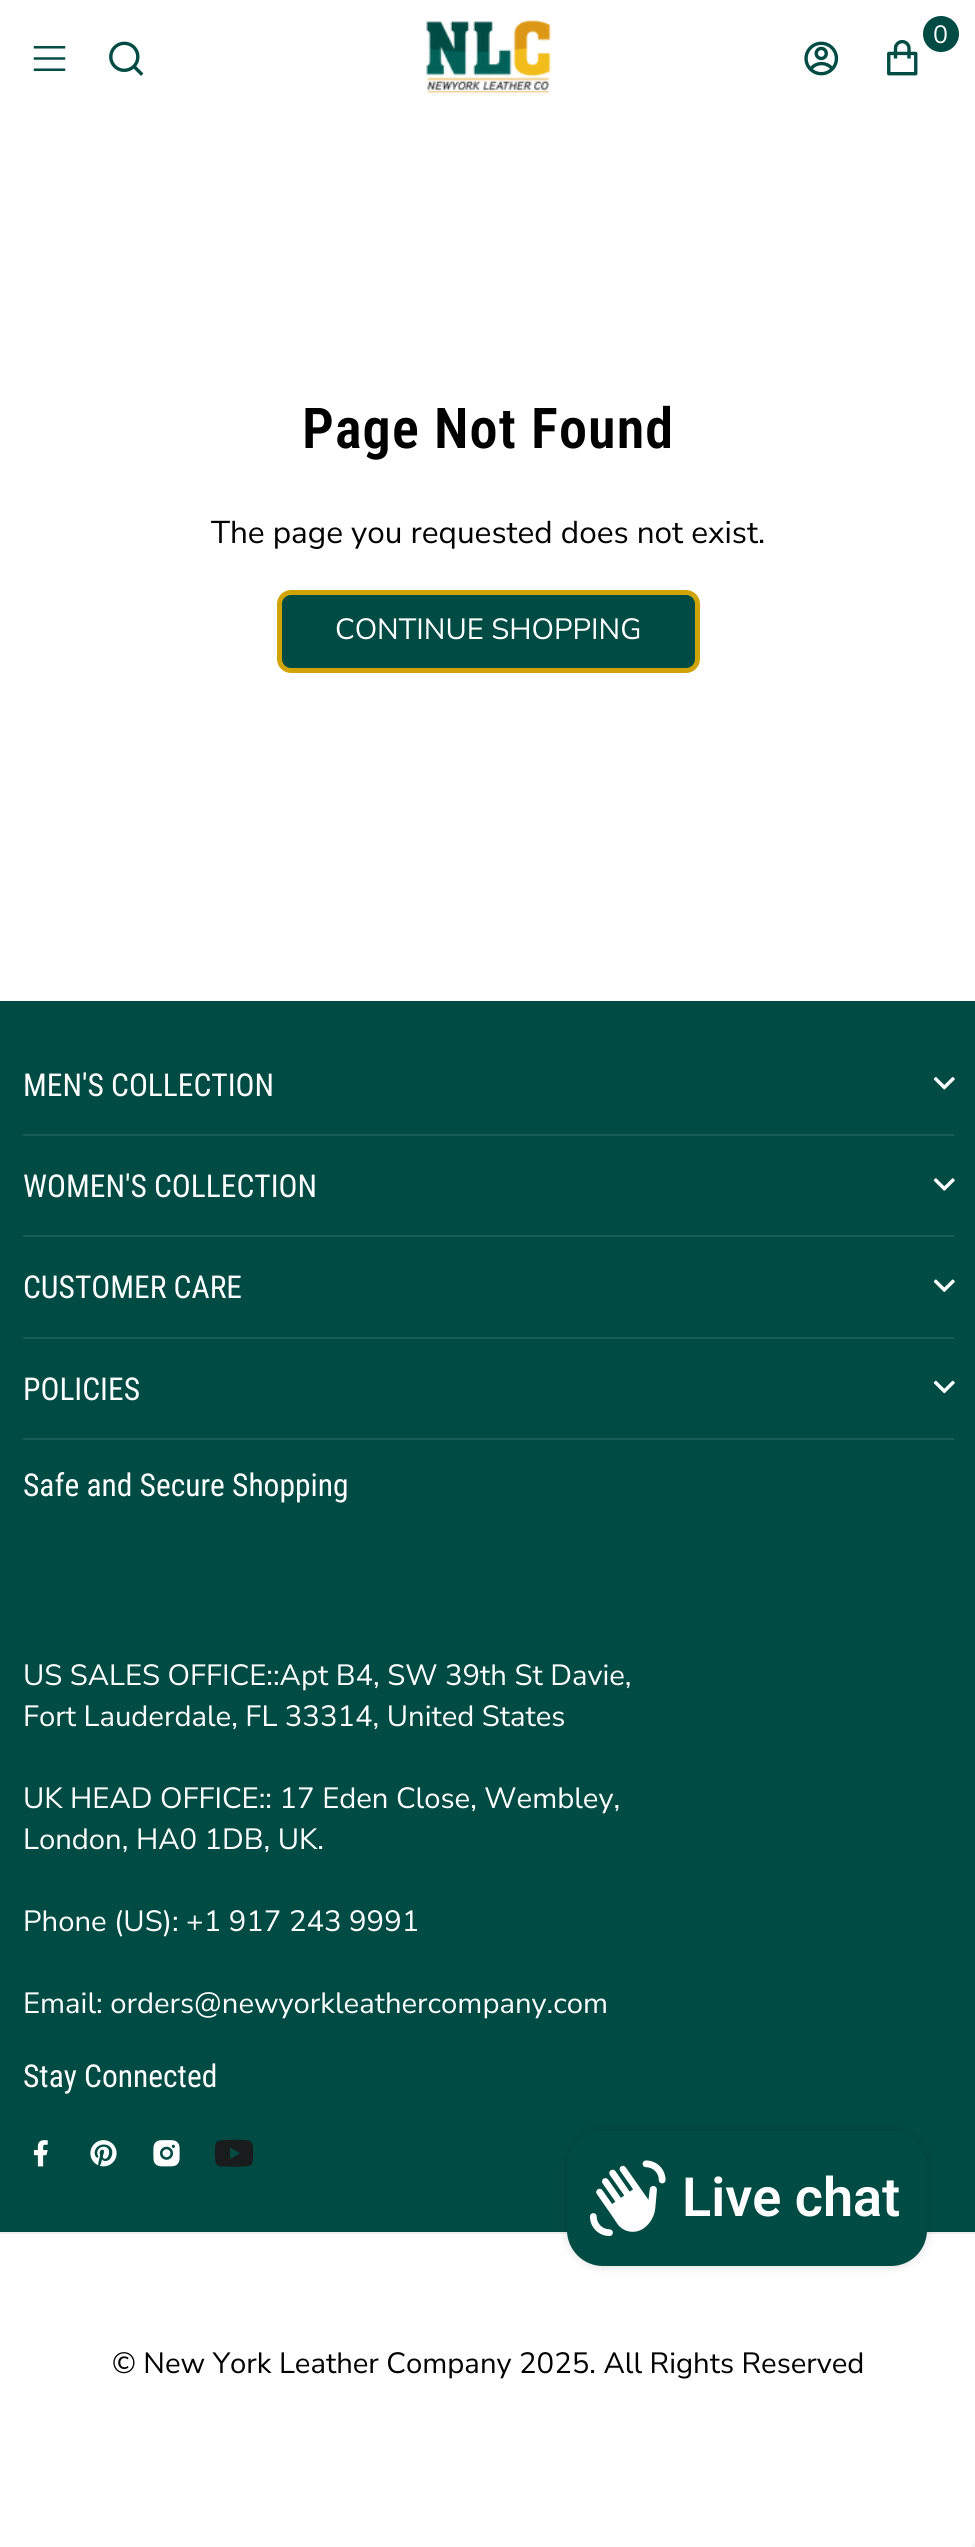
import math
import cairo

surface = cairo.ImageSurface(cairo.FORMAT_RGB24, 975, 2547)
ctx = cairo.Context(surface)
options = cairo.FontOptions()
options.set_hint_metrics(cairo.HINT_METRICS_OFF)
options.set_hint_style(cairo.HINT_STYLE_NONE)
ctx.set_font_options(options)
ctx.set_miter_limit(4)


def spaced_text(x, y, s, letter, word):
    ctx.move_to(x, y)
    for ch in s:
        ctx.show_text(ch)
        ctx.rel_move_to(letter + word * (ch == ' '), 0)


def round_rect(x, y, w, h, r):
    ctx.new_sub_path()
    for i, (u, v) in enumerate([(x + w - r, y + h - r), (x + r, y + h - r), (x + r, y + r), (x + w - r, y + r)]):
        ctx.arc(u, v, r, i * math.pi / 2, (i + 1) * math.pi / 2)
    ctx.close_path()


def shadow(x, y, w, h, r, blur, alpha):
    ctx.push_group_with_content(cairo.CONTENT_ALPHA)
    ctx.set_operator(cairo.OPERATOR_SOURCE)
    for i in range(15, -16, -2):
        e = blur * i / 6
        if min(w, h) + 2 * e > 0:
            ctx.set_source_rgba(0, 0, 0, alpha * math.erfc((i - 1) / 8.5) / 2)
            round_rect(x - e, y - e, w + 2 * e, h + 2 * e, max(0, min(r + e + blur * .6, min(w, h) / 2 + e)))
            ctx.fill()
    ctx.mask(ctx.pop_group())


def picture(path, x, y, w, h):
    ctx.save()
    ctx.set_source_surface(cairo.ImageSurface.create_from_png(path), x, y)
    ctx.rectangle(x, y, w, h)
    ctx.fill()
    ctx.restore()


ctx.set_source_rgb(1, 1, 1)
ctx.paint()
picture("img1.png", 426, 20, 125, 74)
ctx.set_source_rgb(0.004, 0.294, 0.271)
ctx.arc(941, 34, 18, 0, 2 * math.pi)
ctx.fill()
ctx.select_font_face("Nunito Sans")
ctx.set_font_size(25)
ctx.set_source_rgb(1, 1, 1)
ctx.move_to(933, 43)
ctx.show_text("0")
picture("img2.png", 887, 39, 31, 37)
picture("img3.png", 804, 41, 35, 35)
picture("img4.png", 33, 46, 33, 25)
picture("img5.png", 109, 41, 35, 35)
ctx.select_font_face("Roboto Condensed SemiBold")
ctx.set_font_size(56.25)
ctx.set_source_rgb(0, 0, 0)
spaced_text(302, 448, "Page Not Found", 1.1, 0)
ctx.select_font_face("Nunito Sans")
ctx.set_font_size(31.5)
ctx.move_to(211, 543)
ctx.show_text("The page you requested does not exist.")
ctx.set_source_rgb(0.004, 0.294, 0.271)
round_rect(279.5, 592.5, 418, 78, 11.5)
ctx.fill_preserve()
ctx.set_source_rgb(0.816, 0.639, 0.024)
ctx.set_line_width(5)
ctx.stroke()
ctx.set_font_size(29.25)
ctx.set_source_rgb(1, 1, 1)
ctx.move_to(335, 639)
ctx.show_text("CONTINUE SHOPPING")
ctx.set_source_rgb(0.004, 0.294, 0.271)
ctx.rectangle(0, 1001, 975, 1231)
ctx.fill()
ctx.select_font_face("Roboto Condensed")
ctx.set_font_size(31.5)
ctx.set_source_rgb(1, 1, 1)
ctx.move_to(23, 1096)
ctx.show_text("MEN'S COLLECTION")
picture("img6.png", 933, 1077, 22, 13)
ctx.set_source_rgb(0.102, 0.365, 0.345)
ctx.rectangle(23, 1134, 931, 2)
ctx.fill()
ctx.set_source_rgb(1, 1, 1)
ctx.move_to(23, 1197)
ctx.show_text("WOMEN'S COLLECTION")
picture("img7.png", 933, 1178, 22, 13)
ctx.set_source_rgb(0.102, 0.365, 0.345)
ctx.rectangle(23, 1235, 931, 2)
ctx.fill()
ctx.set_source_rgb(1, 1, 1)
ctx.move_to(23, 1298)
ctx.show_text("CUSTOMER CARE")
picture("img8.png", 933, 1279, 22, 13)
ctx.set_source_rgb(0.102, 0.365, 0.345)
ctx.rectangle(23, 1337, 931, 2)
ctx.fill()
ctx.set_source_rgb(1, 1, 1)
ctx.move_to(23, 1400)
ctx.show_text("POLICIES")
picture("img9.png", 933, 1380, 22, 14)
ctx.set_source_rgb(0.102, 0.365, 0.345)
ctx.rectangle(23, 1438, 931, 2)
ctx.fill()
ctx.set_source_rgb(1, 1, 1)
ctx.move_to(23, 1496)
ctx.show_text("Safe and Secure Shopping")
ctx.select_font_face("Nunito Sans")
ctx.set_font_size(29.25)
ctx.move_to(23, 1685)
ctx.show_text("US SALES OFFICE::Apt B4, SW 39th St Davie,")
ctx.move_to(23, 1726)
ctx.show_text("Fort Lauderdale, FL 33314, United States")
ctx.move_to(23, 1808)
ctx.show_text("UK HEAD OFFICE:: 17 Eden Close, Wembley,")
ctx.move_to(23, 1849)
ctx.show_text("London, HA0 1DB, UK.")
ctx.move_to(23, 1931)
ctx.show_text("Phone (US): +1 917 243 9991")
ctx.move_to(23, 2013)
ctx.show_text("Email: orders@newyorkleathercompany.com")
ctx.select_font_face("Roboto Condensed")
ctx.set_font_size(31.5)
ctx.move_to(23, 2087)
ctx.show_text("Stay Connected")
picture("img10.png", 33, 2140, 15, 27)
picture("img11.png", 90, 2140, 27, 27)
picture("img12.png", 153, 2140, 27, 27)
picture("img13.png", 214, 2139, 40, 28)
ctx.set_source_rgb(0.933, 0.933, 0.933)
ctx.rectangle(0, 2232, 975, 2)
ctx.fill()
ctx.select_font_face("Nunito Sans")
ctx.set_font_size(29.25)
ctx.set_source_rgb(0, 0, 0)
ctx.move_to(112, 2373)
ctx.show_text("© New York Leather Company 2025. All Rights Reserved")
ctx.set_source_rgb(0, 0, 0)
shadow(567, 2131, 360, 135, 36, 5.5, 0.15)
ctx.set_source_rgb(0.004, 0.294, 0.271)
round_rect(567, 2131, 360, 135, 36)
ctx.fill()
picture("img14.png", 589, 2160, 77, 77)
ctx.select_font_face("Roboto SemiBold")
ctx.set_font_size(54)
ctx.set_source_rgb(1, 1, 1)
ctx.move_to(682, 2216)
ctx.show_text("Live chat")
ctx.set_source_rgb(0.961, 0.961, 0.961)
ctx.rectangle(972, 2543, 3, 4)
ctx.fill()
surface.write_to_png("page.png")
